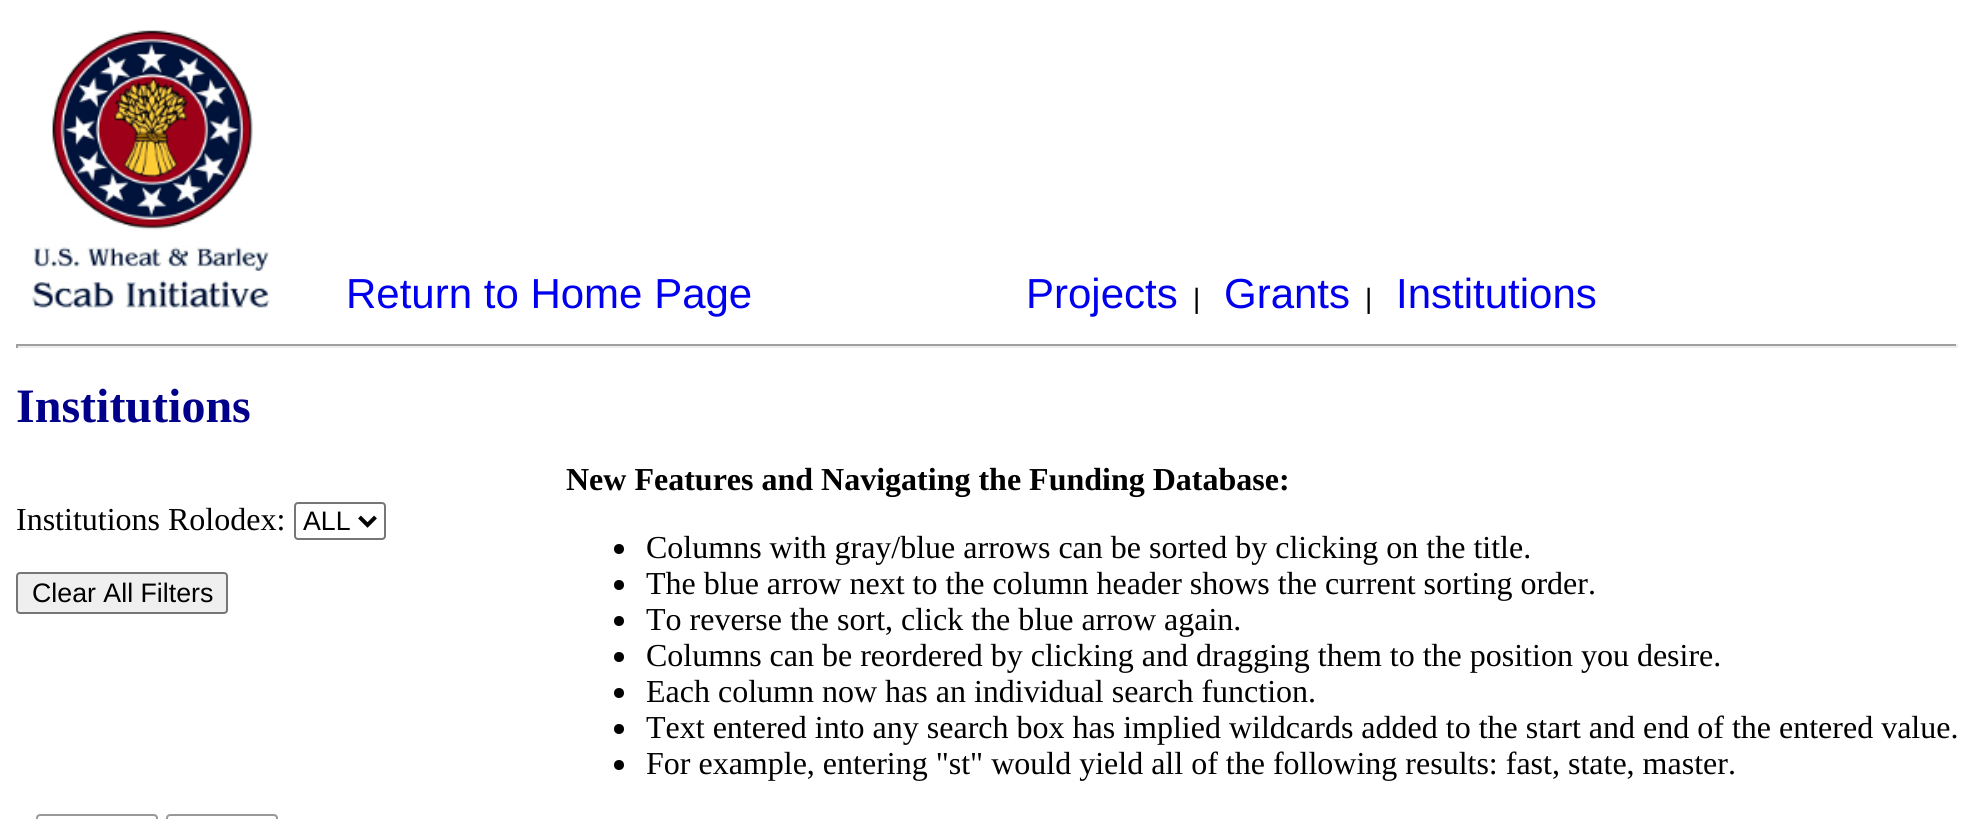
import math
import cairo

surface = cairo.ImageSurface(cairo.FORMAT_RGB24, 1974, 819)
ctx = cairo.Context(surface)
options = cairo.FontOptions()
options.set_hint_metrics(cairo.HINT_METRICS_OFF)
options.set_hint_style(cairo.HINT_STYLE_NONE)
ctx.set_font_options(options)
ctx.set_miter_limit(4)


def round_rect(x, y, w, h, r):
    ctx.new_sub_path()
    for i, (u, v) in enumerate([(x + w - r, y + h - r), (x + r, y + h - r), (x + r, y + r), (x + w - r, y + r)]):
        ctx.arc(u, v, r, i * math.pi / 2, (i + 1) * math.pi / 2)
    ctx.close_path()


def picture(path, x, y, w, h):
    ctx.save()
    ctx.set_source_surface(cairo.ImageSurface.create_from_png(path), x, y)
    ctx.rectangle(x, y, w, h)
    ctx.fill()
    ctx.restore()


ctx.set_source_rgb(1, 1, 1)
ctx.paint()
picture("img1.png", 31, 30, 239, 278)
ctx.select_font_face("Liberation Sans")
ctx.set_font_size(42)
ctx.set_source_rgb(0, 0, 0.933)
ctx.move_to(346, 308)
ctx.show_text("Return to Home Page")
ctx.move_to(1026, 308)
ctx.show_text("Projects")
ctx.set_font_size(28)
ctx.set_source_rgb(0, 0, 0)
ctx.move_to(1193, 308)
ctx.show_text("|")
ctx.set_font_size(42)
ctx.set_source_rgb(0, 0, 0.933)
ctx.move_to(1224, 308)
ctx.show_text("Grants")
ctx.set_font_size(28)
ctx.set_source_rgb(0, 0, 0)
ctx.move_to(1365, 308)
ctx.show_text("|")
ctx.set_font_size(42)
ctx.set_source_rgb(0, 0, 0.933)
ctx.move_to(1396, 308)
ctx.show_text("Institutions")
ctx.set_source_rgb(0.624, 0.624, 0.624)
ctx.rectangle(16, 344, 1942, 2)
ctx.fill()
ctx.set_source_rgb(0.933, 0.933, 0.933)
ctx.rectangle(1956, 344, 2, 4)
ctx.fill()
ctx.rectangle(16, 346, 1942, 2)
ctx.fill()
ctx.set_source_rgb(0.624, 0.624, 0.624)
ctx.rectangle(16, 344, 2, 4)
ctx.fill()
ctx.select_font_face("Liberation Serif", cairo.FONT_SLANT_NORMAL, cairo.FONT_WEIGHT_BOLD)
ctx.set_font_size(48)
ctx.set_source_rgb(0, 0, 0.545)
ctx.move_to(16, 422)
ctx.show_text("Institutions")
ctx.select_font_face("Liberation Serif")
ctx.set_font_size(32)
ctx.set_source_rgb(0, 0, 0)
ctx.move_to(16, 530)
ctx.show_text("Institutions Rolodex:")
round_rect(295, 503, 90, 36, 3)
ctx.set_source_rgb(0.463, 0.463, 0.463)
ctx.stroke()
ctx.new_path()
ctx.move_to(359.5, 517)
ctx.line_to(367.5, 525)
ctx.line_to(375.5, 517)
ctx.set_source_rgb(0, 0, 0)
ctx.set_line_width(4)
ctx.stroke()
ctx.select_font_face("Liberation Sans")
ctx.set_font_size(26.75)
ctx.move_to(303, 530)
ctx.show_text("ALL")
ctx.select_font_face("Liberation Serif", cairo.FONT_SLANT_NORMAL, cairo.FONT_WEIGHT_BOLD)
ctx.set_font_size(32)
ctx.move_to(566, 490)
ctx.show_text("New Features and Navigating the Funding Database:")
ctx.new_path()
ctx.arc(619, 549, 5, 0, 2 * math.pi)
ctx.fill()
ctx.select_font_face("Liberation Serif")
ctx.move_to(646, 558)
ctx.show_text("Columns with gray/blue arrows can be sorted by clicking on the title.")
ctx.new_path()
ctx.arc(619, 585, 5, 0, 2 * math.pi)
ctx.fill()
ctx.move_to(646, 594)
ctx.show_text("The blue arrow next to the column header shows the current sorting order.")
ctx.new_path()
ctx.arc(619, 621, 5, 0, 2 * math.pi)
ctx.fill()
ctx.move_to(646, 630)
ctx.show_text("To reverse the sort, click the blue arrow again.")
ctx.new_path()
ctx.arc(619, 657, 5, 0, 2 * math.pi)
ctx.fill()
ctx.move_to(646, 666)
ctx.show_text("Columns can be reordered by clicking and dragging them to the position you desire.")
ctx.new_path()
ctx.arc(619, 693, 5, 0, 2 * math.pi)
ctx.fill()
ctx.move_to(646, 702)
ctx.show_text("Each column now has an individual search function.")
ctx.new_path()
ctx.arc(619, 729, 5, 0, 2 * math.pi)
ctx.fill()
ctx.move_to(646, 738)
ctx.show_text("Text entered into any search box has implied wildcards added to the start and end of the entered value.")
ctx.new_path()
ctx.arc(619, 765, 5, 0, 2 * math.pi)
ctx.fill()
ctx.move_to(646, 774)
ctx.show_text("For example, entering \"st\" would yield all of the following results: fast, state, master.")
ctx.set_source_rgb(0.937, 0.937, 0.937)
round_rect(17, 573, 210, 40, 3)
ctx.fill_preserve()
ctx.set_source_rgb(0.463, 0.463, 0.463)
ctx.set_line_width(2)
ctx.stroke()
ctx.select_font_face("Liberation Sans")
ctx.set_font_size(26.75)
ctx.set_source_rgb(0, 0, 0)
ctx.move_to(32, 602)
ctx.show_text("Clear All Filters")
round_rect(37, 815, 120, 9, 3)
ctx.set_source_rgb(0.6, 0.6, 0.6)
ctx.stroke()
round_rect(167, 815, 110, 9, 3)
ctx.stroke()
surface.write_to_png("page.png")
